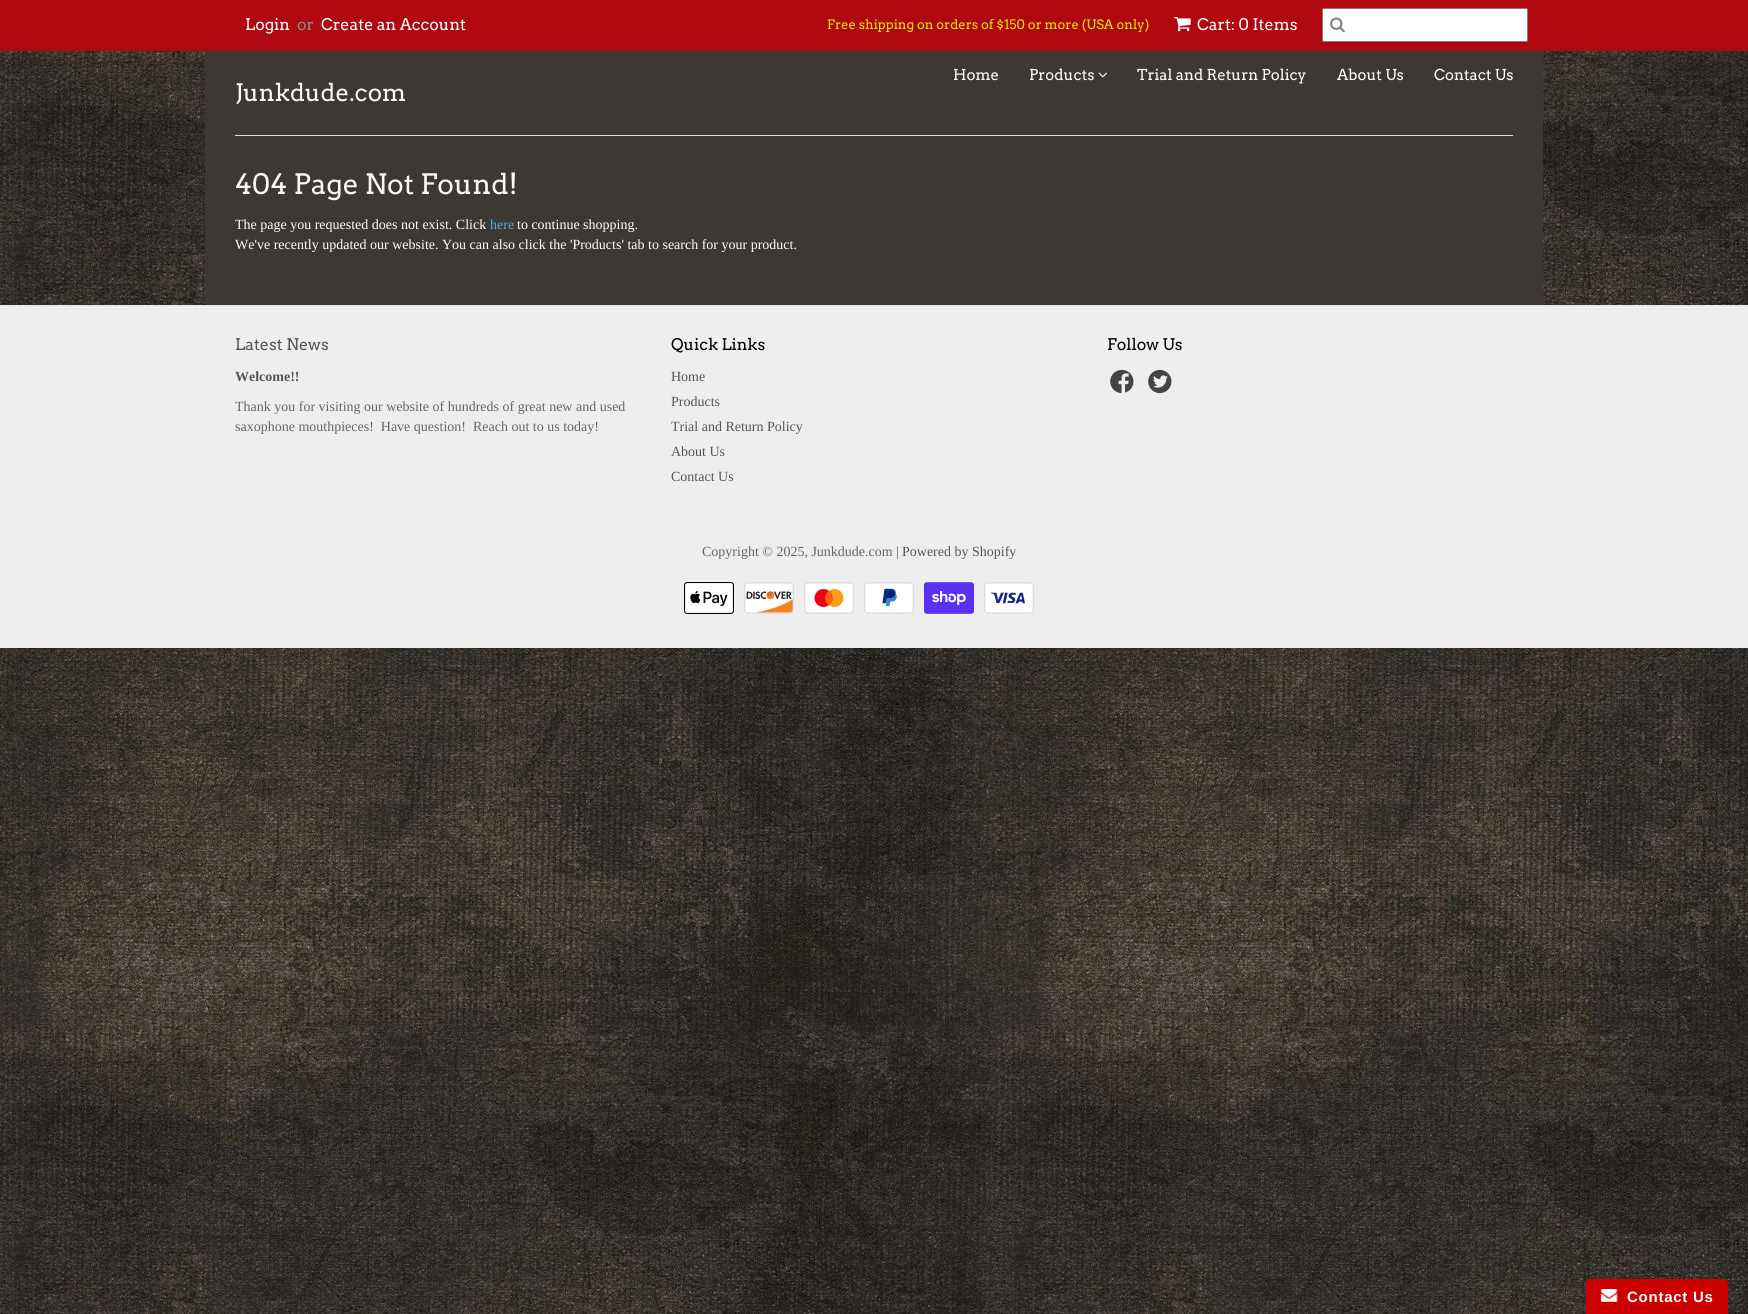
import math
import cairo

surface = cairo.ImageSurface(cairo.FORMAT_RGB24, 1748, 1314)
ctx = cairo.Context(surface)
options = cairo.FontOptions()
options.set_hint_metrics(cairo.HINT_METRICS_OFF)
options.set_hint_style(cairo.HINT_STYLE_NONE)
ctx.set_font_options(options)
ctx.set_miter_limit(4)


def spaced_text(x, y, s, letter, word):
    ctx.move_to(x, y)
    for ch in s:
        ctx.show_text(ch)
        ctx.rel_move_to(letter + word * (ch == ' '), 0)


def round_rect(x, y, w, h, r):
    ctx.new_sub_path()
    for i, (u, v) in enumerate([(x + w - r, y + h - r), (x + r, y + h - r), (x + r, y + r), (x + w - r, y + r)]):
        ctx.arc(u, v, r, i * math.pi / 2, (i + 1) * math.pi / 2)
    ctx.close_path()


def picture(path, x, y, w, h):
    ctx.save()
    ctx.set_source_surface(cairo.ImageSurface.create_from_png(path), x, y)
    ctx.rectangle(x, y, w, h)
    ctx.fill()
    ctx.restore()


ctx.set_source_rgb(1, 1, 1)
ctx.paint()
picture("img1.png", 0, 648, 1748, 666)
picture("img2.png", 0, 51, 1748, 254)
ctx.set_source_rgb(0.686, 0.035, 0.063)
ctx.rectangle(0, 0, 1748, 50)
ctx.fill()
ctx.set_source_rgb(0.686, 0.039, 0.039)
ctx.rectangle(0, 50, 1748, 1)
ctx.fill()
ctx.select_font_face("Arvo")
ctx.set_font_size(16)
ctx.set_source_rgb(1, 1, 1)
ctx.move_to(245, 30)
ctx.show_text("Login")
ctx.set_source_rgb(0.533, 0.533, 0.533)
ctx.move_to(297, 30)
ctx.show_text("or")
ctx.set_source_rgb(1, 1, 1)
ctx.move_to(321, 30)
ctx.show_text("Create an Account")
ctx.set_font_size(13)
ctx.set_source_rgb(0.902, 0.902, 0)
ctx.move_to(827, 29)
ctx.show_text("Free shipping on orders of $150 or more (USA only)")
picture("img3.png", 1174, 17, 17, 15)
ctx.set_font_size(16)
ctx.set_source_rgb(1, 1, 1)
ctx.move_to(1197, 30)
ctx.show_text("Cart: 0 Items")
round_rect(1322.5, 8.5, 205, 33, 1.5)
ctx.fill_preserve()
ctx.set_source_rgb(0.498, 0.498, 0.498)
ctx.set_line_width(1)
ctx.stroke()
picture("img4.png", 1330, 17, 15, 16)
ctx.set_source_rgb(0.239, 0.22, 0.204)
ctx.rectangle(205, 51, 1338, 254)
ctx.fill()
ctx.set_source_rgb(0.867, 0.867, 0.867)
ctx.rectangle(235, 135, 1278, 1)
ctx.fill()
ctx.set_font_size(15)
ctx.set_source_rgb(1, 1, 1)
ctx.move_to(953, 80)
ctx.show_text("Home")
ctx.move_to(1029, 80)
ctx.show_text("Products")
picture("img5.png", 1098, 72, 9, 6)
ctx.move_to(1137, 80)
ctx.show_text("Trial and Return Policy")
ctx.move_to(1337, 80)
ctx.show_text("About Us")
ctx.move_to(1434, 80)
ctx.show_text("Contact Us")
ctx.set_font_size(24)
ctx.set_source_rgb(0.973, 0.973, 0.973)
ctx.move_to(235, 101)
ctx.show_text("Junkdude.com")
ctx.set_font_size(28)
ctx.move_to(235, 194)
ctx.show_text("404 Page Not Found!")
ctx.select_font_face("Liberation Serif")
ctx.set_font_size(14)
ctx.set_source_rgb(1, 1, 1)
ctx.move_to(235, 229)
ctx.show_text("The page you requested does not exist. Click")
ctx.set_source_rgb(0.314, 0.702, 0.855)
ctx.move_to(490, 229)
ctx.show_text("here")
ctx.set_source_rgb(1, 1, 1)
ctx.move_to(517, 229)
ctx.show_text("to continue shopping.")
ctx.move_to(235, 249)
ctx.show_text("We've recently updated our website. You can also click the 'Products' tab to search for your product.")
ctx.set_source_rgb(0.933, 0.933, 0.933)
ctx.rectangle(0, 306, 1748, 342)
ctx.fill()
ctx.set_source_rgb(0.898, 0.898, 0.898)
ctx.rectangle(0, 305, 1748, 1)
ctx.fill()
ctx.select_font_face("Arvo")
ctx.set_font_size(16)
ctx.set_source_rgb(0.333, 0.333, 0.333)
ctx.move_to(235, 350)
ctx.show_text("Latest News")
ctx.select_font_face("Liberation Serif", cairo.FONT_SLANT_NORMAL, cairo.FONT_WEIGHT_BOLD)
ctx.set_font_size(14)
ctx.move_to(235, 381)
ctx.show_text("Welcome!!")
ctx.select_font_face("Liberation Serif")
ctx.set_source_rgb(0.4, 0.4, 0.4)
ctx.move_to(235, 411)
ctx.show_text("Thank you for visiting our website of hundreds of great new and used")
ctx.move_to(235, 431)
ctx.show_text("saxophone mouthpieces!  Have question!  Reach out to us today!")
ctx.select_font_face("Arvo")
ctx.set_font_size(16)
ctx.set_source_rgb(0, 0, 0)
ctx.move_to(671, 350)
ctx.show_text("Quick Links")
ctx.select_font_face("Liberation Serif")
ctx.set_font_size(14)
ctx.set_source_rgb(0.333, 0.333, 0.333)
ctx.move_to(671, 381)
ctx.show_text("Home")
ctx.move_to(671, 406)
ctx.show_text("Products")
ctx.move_to(671, 431)
ctx.show_text("Trial and Return Policy")
ctx.move_to(671, 456)
ctx.show_text("About Us")
ctx.move_to(671, 481)
ctx.show_text("Contact Us")
ctx.select_font_face("Arvo")
ctx.set_font_size(16)
ctx.set_source_rgb(0, 0, 0)
ctx.move_to(1107, 350)
ctx.show_text("Follow Us")
picture("img6.png", 1110, 369, 24, 25)
picture("img7.png", 1148, 369, 24, 25)
ctx.select_font_face("Liberation Serif")
ctx.set_font_size(14)
ctx.set_source_rgb(0.4, 0.4, 0.4)
ctx.move_to(702, 556)
ctx.show_text("Copyright © 2025, Junkdude.com |")
ctx.set_source_rgb(0.333, 0.333, 0.333)
ctx.move_to(902, 556)
ctx.show_text("Powered by Shopify")
picture("img8.png", 684, 582, 50, 32)
picture("img9.png", 744, 582, 50, 32)
picture("img10.png", 804, 582, 50, 32)
picture("img11.png", 864, 582, 50, 32)
picture("img12.png", 924, 582, 50, 32)
picture("img13.png", 984, 582, 50, 32)
ctx.set_source_rgb(0.8, 0, 0)
ctx.new_path()
ctx.move_to(1591, 1279)
ctx.line_to(1723, 1279)
ctx.curve_to(1726, 1279, 1728, 1281, 1728, 1284)
ctx.line_to(1728, 1314)
ctx.line_to(1586, 1314)
ctx.line_to(1586, 1284)
ctx.curve_to(1586, 1281, 1588, 1279, 1591, 1279)
ctx.close_path()
ctx.fill()
picture("img14.png", 1600, 1289, 18, 13)
ctx.select_font_face("Liberation Sans", cairo.FONT_SLANT_NORMAL, cairo.FONT_WEIGHT_BOLD)
ctx.set_font_size(15)
ctx.set_source_rgb(1, 1, 1)
spaced_text(1627, 1302, "Contact Us", 0.75, 0)
surface.write_to_png("page.png")
